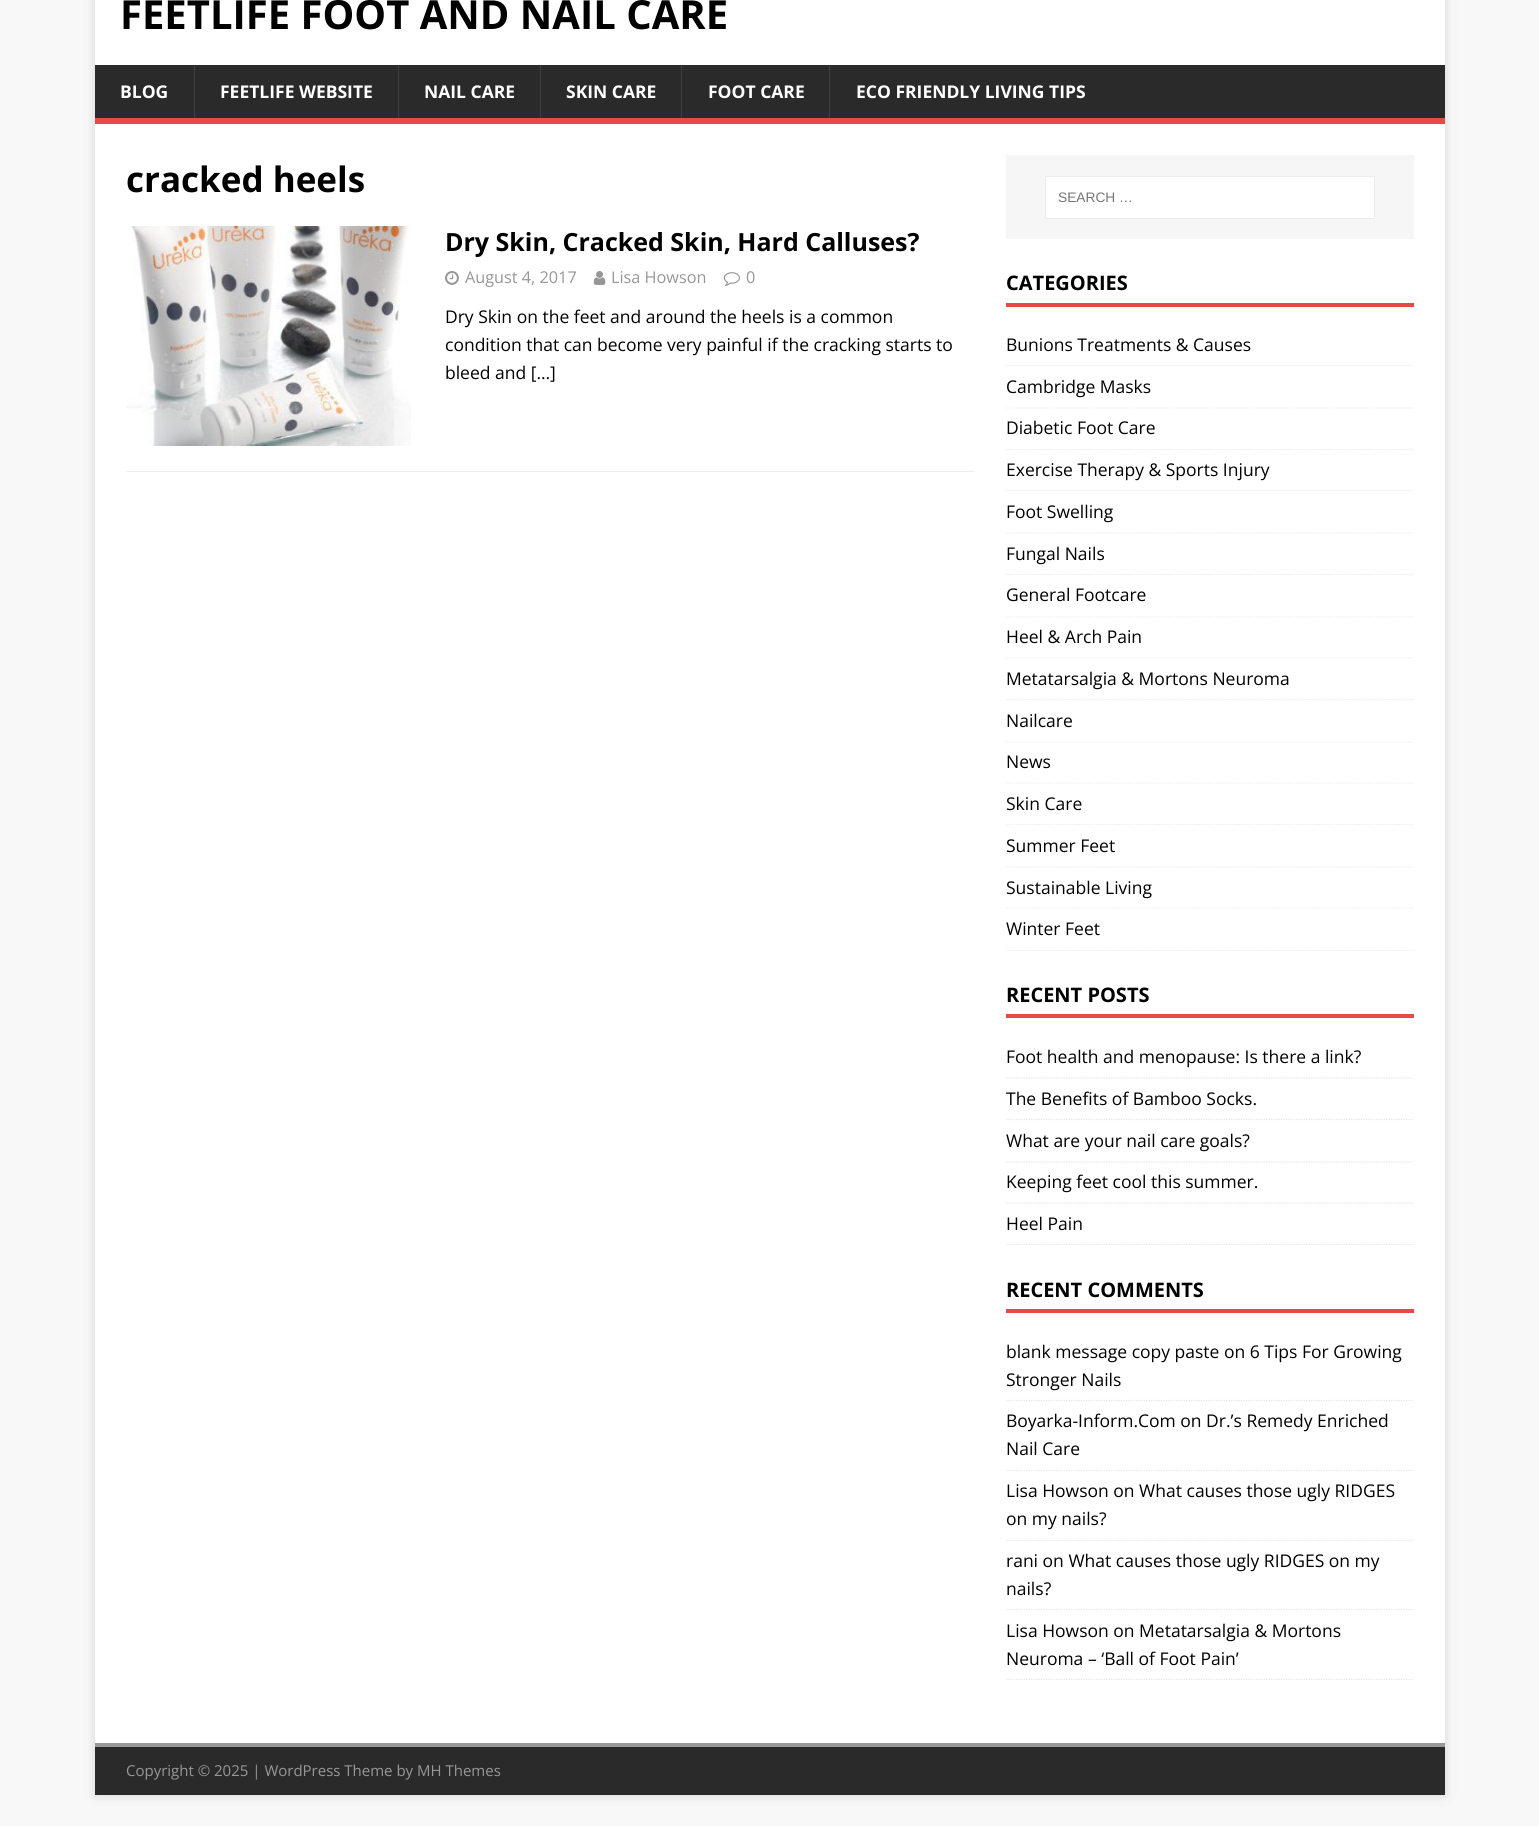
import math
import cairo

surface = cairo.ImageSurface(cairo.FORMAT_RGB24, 1539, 1826)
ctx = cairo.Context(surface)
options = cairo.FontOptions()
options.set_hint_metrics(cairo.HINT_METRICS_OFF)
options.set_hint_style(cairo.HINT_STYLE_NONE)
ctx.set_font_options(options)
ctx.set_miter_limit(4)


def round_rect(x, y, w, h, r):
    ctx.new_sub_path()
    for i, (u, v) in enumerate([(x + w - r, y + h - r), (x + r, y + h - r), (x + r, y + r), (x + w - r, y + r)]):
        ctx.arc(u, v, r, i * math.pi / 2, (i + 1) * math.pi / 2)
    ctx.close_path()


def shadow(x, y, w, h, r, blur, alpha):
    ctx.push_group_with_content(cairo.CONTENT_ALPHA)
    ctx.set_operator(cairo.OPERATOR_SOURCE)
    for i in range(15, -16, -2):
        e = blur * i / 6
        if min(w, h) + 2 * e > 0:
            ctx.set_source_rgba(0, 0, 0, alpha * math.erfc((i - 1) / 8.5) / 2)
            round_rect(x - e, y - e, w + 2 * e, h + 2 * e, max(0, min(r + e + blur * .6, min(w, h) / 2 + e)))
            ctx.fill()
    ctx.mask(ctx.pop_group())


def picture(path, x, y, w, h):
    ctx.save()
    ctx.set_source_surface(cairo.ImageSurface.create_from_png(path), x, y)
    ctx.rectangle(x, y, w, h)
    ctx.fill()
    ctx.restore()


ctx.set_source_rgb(0.969, 0.969, 0.969)
ctx.paint()
ctx.set_source_rgb(0.196, 0.196, 0.196)
shadow(95, -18, 1350, 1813, 0, 6, 0.17)
ctx.set_source_rgb(1, 1, 1)
ctx.rectangle(95, 0, 1350, 65)
ctx.fill()
ctx.select_font_face("Open Sans", cairo.FONT_SLANT_NORMAL, cairo.FONT_WEIGHT_BOLD)
ctx.set_font_size(40)
ctx.set_source_rgb(0, 0, 0)
ctx.move_to(120, 29)
ctx.show_text("FEETLIFE FOOT AND NAIL CARE")
ctx.set_source_rgb(0.165, 0.165, 0.165)
ctx.rectangle(95, 65, 1350, 53)
ctx.fill()
ctx.set_source_rgb(0.902, 0.286, 0.275)
ctx.rectangle(95, 118, 1350, 6)
ctx.fill()
ctx.set_font_size(17.5)
ctx.set_source_rgb(1, 1, 1)
ctx.move_to(120, 98)
ctx.show_text("BLOG")
ctx.set_source_rgb(0.247, 0.247, 0.247)
ctx.rectangle(194, 65, 1, 53)
ctx.fill()
ctx.set_source_rgb(1, 1, 1)
ctx.move_to(220, 98)
ctx.show_text("FEETLIFE WEBSITE")
ctx.set_source_rgb(0.247, 0.247, 0.247)
ctx.rectangle(398, 65, 1, 53)
ctx.fill()
ctx.set_source_rgb(1, 1, 1)
ctx.move_to(424, 98)
ctx.show_text("NAIL CARE")
ctx.set_source_rgb(0.247, 0.247, 0.247)
ctx.rectangle(540, 65, 1, 53)
ctx.fill()
ctx.set_source_rgb(1, 1, 1)
ctx.move_to(566, 98)
ctx.show_text("SKIN CARE")
ctx.set_source_rgb(0.247, 0.247, 0.247)
ctx.rectangle(681, 65, 1, 53)
ctx.fill()
ctx.set_source_rgb(1, 1, 1)
ctx.move_to(708, 98)
ctx.show_text("FOOT CARE")
ctx.set_source_rgb(0.247, 0.247, 0.247)
ctx.rectangle(829, 65, 1, 53)
ctx.fill()
ctx.set_source_rgb(1, 1, 1)
ctx.move_to(856, 98)
ctx.show_text("ECO FRIENDLY LIVING TIPS")
ctx.rectangle(95, 124, 1350, 1619)
ctx.fill()
ctx.set_font_size(35)
ctx.set_source_rgb(0, 0, 0)
ctx.move_to(126, 192)
ctx.show_text("cracked heels")
ctx.set_source_rgb(0.922, 0.922, 0.922)
ctx.rectangle(126, 471, 848, 1)
ctx.fill()
picture("img1.png", 126, 226, 285, 220)
ctx.set_font_size(25)
ctx.set_source_rgb(0, 0, 0)
ctx.move_to(445, 251)
ctx.show_text("Dry Skin, Cracked Skin, Hard Calluses?")
picture("img2.png", 445, 271, 14, 14)
ctx.select_font_face("Open Sans")
ctx.set_font_size(16.25)
ctx.set_source_rgb(0.592, 0.592, 0.592)
ctx.move_to(465, 283)
ctx.show_text("August 4, 2017")
picture("img3.png", 593, 271, 13, 14)
ctx.move_to(611, 283)
ctx.show_text("Lisa Howson")
picture("img4.png", 723, 272, 17, 14)
ctx.move_to(746, 283)
ctx.show_text("0")
ctx.set_font_size(17.5)
ctx.set_source_rgb(0, 0, 0)
ctx.move_to(445, 323)
ctx.show_text("Dry Skin on the feet and around the heels is a common")
ctx.move_to(445, 351)
ctx.show_text("condition that can become very painful if the cracking starts to")
ctx.move_to(445, 379)
ctx.show_text("bleed and […]")
ctx.set_source_rgb(0.961, 0.961, 0.961)
ctx.rectangle(1006, 155, 408, 84)
ctx.fill()
ctx.set_source_rgb(1, 1, 1)
ctx.rectangle(1045.5, 176.5, 329, 42)
ctx.fill_preserve()
ctx.set_source_rgb(0.922, 0.922, 0.922)
ctx.set_line_width(1)
ctx.stroke()
ctx.select_font_face("Liberation Sans")
ctx.set_font_size(13.75)
ctx.set_source_rgb(0.459, 0.459, 0.459)
ctx.move_to(1058, 202)
ctx.show_text("SEARCH …")
ctx.set_source_rgb(0.902, 0.286, 0.275)
ctx.rectangle(1006, 303, 408, 4)
ctx.fill()
ctx.select_font_face("Open Sans", cairo.FONT_SLANT_NORMAL, cairo.FONT_WEIGHT_BOLD)
ctx.set_font_size(20)
ctx.set_source_rgb(0, 0, 0)
ctx.move_to(1006, 290)
ctx.show_text("CATEGORIES")
ctx.new_path()
ctx.move_to(1006, 365.5)
ctx.line_to(1414, 365.5)
ctx.set_source_rgb(0.922, 0.922, 0.922)
ctx.set_line_width(1.2)
ctx.set_dash([1.25, 1.25])
ctx.stroke()
ctx.select_font_face("Open Sans")
ctx.set_font_size(17.5)
ctx.set_source_rgb(0, 0, 0)
ctx.move_to(1006, 351)
ctx.show_text("Bunions Treatments & Causes")
ctx.new_path()
ctx.move_to(1006, 408)
ctx.line_to(1414, 408)
ctx.set_source_rgb(0.922, 0.922, 0.922)
ctx.stroke()
ctx.set_source_rgb(0, 0, 0)
ctx.move_to(1006, 393)
ctx.show_text("Cambridge Masks")
ctx.new_path()
ctx.move_to(1006, 449.5)
ctx.line_to(1414, 449.5)
ctx.set_source_rgb(0.922, 0.922, 0.922)
ctx.stroke()
ctx.set_source_rgb(0, 0, 0)
ctx.move_to(1006, 434)
ctx.show_text("Diabetic Foot Care")
ctx.new_path()
ctx.move_to(1006, 490.5)
ctx.line_to(1414, 490.5)
ctx.set_source_rgb(0.922, 0.922, 0.922)
ctx.stroke()
ctx.set_source_rgb(0, 0, 0)
ctx.move_to(1006, 476)
ctx.show_text("Exercise Therapy & Sports Injury")
ctx.new_path()
ctx.move_to(1006, 533)
ctx.line_to(1414, 533)
ctx.set_source_rgb(0.922, 0.922, 0.922)
ctx.stroke()
ctx.set_source_rgb(0, 0, 0)
ctx.move_to(1006, 518)
ctx.show_text("Foot Swelling")
ctx.new_path()
ctx.move_to(1006, 574.5)
ctx.line_to(1414, 574.5)
ctx.set_source_rgb(0.922, 0.922, 0.922)
ctx.stroke()
ctx.set_source_rgb(0, 0, 0)
ctx.move_to(1006, 560)
ctx.show_text("Fungal Nails")
ctx.new_path()
ctx.move_to(1006, 617)
ctx.line_to(1414, 617)
ctx.set_source_rgb(0.922, 0.922, 0.922)
ctx.stroke()
ctx.set_source_rgb(0, 0, 0)
ctx.move_to(1006, 601)
ctx.show_text("General Footcare")
ctx.new_path()
ctx.move_to(1006, 658)
ctx.line_to(1414, 658)
ctx.set_source_rgb(0.922, 0.922, 0.922)
ctx.stroke()
ctx.set_source_rgb(0, 0, 0)
ctx.move_to(1006, 643)
ctx.show_text("Heel & Arch Pain")
ctx.new_path()
ctx.move_to(1006, 699.5)
ctx.line_to(1414, 699.5)
ctx.set_source_rgb(0.922, 0.922, 0.922)
ctx.stroke()
ctx.set_source_rgb(0, 0, 0)
ctx.move_to(1006, 685)
ctx.show_text("Metatarsalgia & Mortons Neuroma")
ctx.new_path()
ctx.move_to(1006, 742)
ctx.line_to(1414, 742)
ctx.set_source_rgb(0.922, 0.922, 0.922)
ctx.stroke()
ctx.set_source_rgb(0, 0, 0)
ctx.move_to(1006, 727)
ctx.show_text("Nailcare")
ctx.new_path()
ctx.move_to(1006, 783)
ctx.line_to(1414, 783)
ctx.set_source_rgb(0.922, 0.922, 0.922)
ctx.stroke()
ctx.set_source_rgb(0, 0, 0)
ctx.move_to(1006, 768)
ctx.show_text("News")
ctx.new_path()
ctx.move_to(1006, 824.5)
ctx.line_to(1414, 824.5)
ctx.set_source_rgb(0.922, 0.922, 0.922)
ctx.stroke()
ctx.set_source_rgb(0, 0, 0)
ctx.move_to(1006, 810)
ctx.show_text("Skin Care")
ctx.new_path()
ctx.move_to(1006, 867)
ctx.line_to(1414, 867)
ctx.set_source_rgb(0.922, 0.922, 0.922)
ctx.stroke()
ctx.set_source_rgb(0, 0, 0)
ctx.move_to(1006, 852)
ctx.show_text("Summer Feet")
ctx.new_path()
ctx.move_to(1006, 908)
ctx.line_to(1414, 908)
ctx.set_source_rgb(0.922, 0.922, 0.922)
ctx.stroke()
ctx.set_source_rgb(0, 0, 0)
ctx.move_to(1006, 894)
ctx.show_text("Sustainable Living")
ctx.save()
ctx.rectangle(1006, 270, 408, 681)
ctx.clip()
ctx.new_path()
ctx.move_to(1006, 950.5)
ctx.line_to(1414, 950.5)
ctx.set_source_rgb(0.922, 0.922, 0.922)
ctx.stroke()
ctx.restore()
ctx.move_to(1006, 935)
ctx.show_text("Winter Feet")
ctx.set_source_rgb(0.902, 0.286, 0.275)
ctx.rectangle(1006, 1014, 408, 4)
ctx.fill()
ctx.select_font_face("Open Sans", cairo.FONT_SLANT_NORMAL, cairo.FONT_WEIGHT_BOLD)
ctx.set_font_size(20)
ctx.set_source_rgb(0, 0, 0)
ctx.move_to(1006, 1002)
ctx.show_text("RECENT POSTS")
ctx.new_path()
ctx.move_to(1006, 1078)
ctx.line_to(1414, 1078)
ctx.set_source_rgb(0.898, 0.898, 0.898)
ctx.stroke()
ctx.select_font_face("Open Sans")
ctx.set_font_size(17.5)
ctx.set_source_rgb(0, 0, 0)
ctx.move_to(1006, 1063)
ctx.show_text("Foot health and menopause: Is there a link?")
ctx.new_path()
ctx.move_to(1006, 1119.5)
ctx.line_to(1414, 1119.5)
ctx.set_source_rgb(0.898, 0.898, 0.898)
ctx.stroke()
ctx.set_source_rgb(0, 0, 0)
ctx.move_to(1006, 1105)
ctx.show_text("The Benefits of Bamboo Socks.")
ctx.new_path()
ctx.move_to(1006, 1162)
ctx.line_to(1414, 1162)
ctx.set_source_rgb(0.898, 0.898, 0.898)
ctx.stroke()
ctx.set_source_rgb(0, 0, 0)
ctx.move_to(1006, 1147)
ctx.show_text("What are your nail care goals?")
ctx.new_path()
ctx.move_to(1006, 1203)
ctx.line_to(1414, 1203)
ctx.set_source_rgb(0.898, 0.898, 0.898)
ctx.stroke()
ctx.set_source_rgb(0, 0, 0)
ctx.move_to(1006, 1188)
ctx.show_text("Keeping feet cool this summer.")
ctx.save()
ctx.rectangle(1006, 983, 408, 262)
ctx.clip()
ctx.new_path()
ctx.move_to(1006, 1244.5)
ctx.line_to(1414, 1244.5)
ctx.set_source_rgb(0.898, 0.898, 0.898)
ctx.stroke()
ctx.restore()
ctx.move_to(1006, 1230)
ctx.show_text("Heel Pain")
ctx.set_source_rgb(0.902, 0.286, 0.275)
ctx.rectangle(1006, 1309, 408, 4)
ctx.fill()
ctx.select_font_face("Open Sans", cairo.FONT_SLANT_NORMAL, cairo.FONT_WEIGHT_BOLD)
ctx.set_font_size(20)
ctx.set_source_rgb(0, 0, 0)
ctx.move_to(1006, 1297)
ctx.show_text("RECENT COMMENTS")
ctx.new_path()
ctx.move_to(1006, 1400.5)
ctx.line_to(1414, 1400.5)
ctx.set_source_rgb(0.898, 0.898, 0.898)
ctx.stroke()
ctx.select_font_face("Open Sans")
ctx.set_font_size(17.5)
ctx.set_source_rgb(0, 0, 0)
ctx.move_to(1006, 1358)
ctx.show_text("blank message copy paste on 6 Tips For Growing")
ctx.move_to(1006, 1386)
ctx.show_text("Stronger Nails")
ctx.new_path()
ctx.move_to(1006, 1470.5)
ctx.line_to(1414, 1470.5)
ctx.set_source_rgb(0.898, 0.898, 0.898)
ctx.stroke()
ctx.set_source_rgb(0, 0, 0)
ctx.move_to(1006, 1427)
ctx.show_text("Boyarka-Inform.Com on Dr.’s Remedy Enriched")
ctx.move_to(1006, 1455)
ctx.show_text("Nail Care")
ctx.new_path()
ctx.move_to(1006, 1540.5)
ctx.line_to(1414, 1540.5)
ctx.set_source_rgb(0.898, 0.898, 0.898)
ctx.stroke()
ctx.set_source_rgb(0, 0, 0)
ctx.move_to(1006, 1497)
ctx.show_text("Lisa Howson on What causes those ugly RIDGES")
ctx.move_to(1006, 1525)
ctx.show_text("on my nails?")
ctx.new_path()
ctx.move_to(1006, 1609.5)
ctx.line_to(1414, 1609.5)
ctx.set_source_rgb(0.898, 0.898, 0.898)
ctx.stroke()
ctx.set_source_rgb(0, 0, 0)
ctx.move_to(1006, 1567)
ctx.show_text("rani on What causes those ugly RIDGES on my")
ctx.move_to(1006, 1595)
ctx.show_text("nails?")
ctx.save()
ctx.rectangle(1006, 1276, 408, 404)
ctx.clip()
ctx.new_path()
ctx.move_to(1006, 1679.5)
ctx.line_to(1414, 1679.5)
ctx.set_source_rgb(0.898, 0.898, 0.898)
ctx.stroke()
ctx.restore()
ctx.move_to(1006, 1637)
ctx.show_text("Lisa Howson on Metatarsalgia & Mortons")
ctx.move_to(1006, 1665)
ctx.show_text("Neuroma – ‘Ball of Foot Pain’")
ctx.set_source_rgb(0.165, 0.165, 0.165)
ctx.rectangle(95, 1747, 1350, 48)
ctx.fill()
ctx.set_source_rgb(0.6, 0.6, 0.6)
ctx.rectangle(95, 1743, 1350, 4)
ctx.fill()
ctx.set_font_size(15)
ctx.set_source_rgb(0.592, 0.592, 0.592)
ctx.move_to(126, 1776)
ctx.show_text("Copyright © 2025 | WordPress Theme by MH Themes")
surface.write_to_png("page.png")
